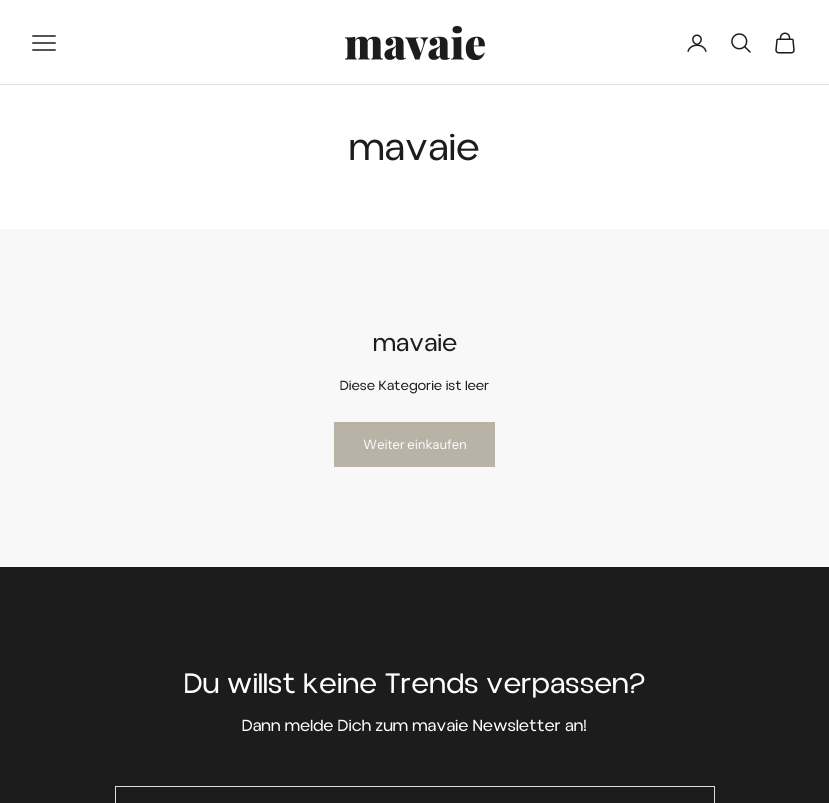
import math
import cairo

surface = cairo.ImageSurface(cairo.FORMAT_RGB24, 829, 803)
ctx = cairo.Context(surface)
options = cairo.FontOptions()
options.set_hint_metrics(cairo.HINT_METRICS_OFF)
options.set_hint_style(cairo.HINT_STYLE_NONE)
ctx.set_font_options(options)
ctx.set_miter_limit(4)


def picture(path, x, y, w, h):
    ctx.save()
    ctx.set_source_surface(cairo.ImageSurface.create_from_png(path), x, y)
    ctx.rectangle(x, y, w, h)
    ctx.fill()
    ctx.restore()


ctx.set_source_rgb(1, 1, 1)
ctx.paint()
ctx.set_source_rgb(0.867, 0.867, 0.867)
ctx.rectangle(0, 84, 829, 1)
ctx.fill()
ctx.new_path()
ctx.move_to(33, 50)
ctx.line_to(55, 50)
ctx.move_to(33, 43)
ctx.line_to(55, 43)
ctx.move_to(33, 36)
ctx.line_to(55, 36)
ctx.set_source_rgb(0.11, 0.11, 0.11)
ctx.set_line_width(1.5)
ctx.set_line_cap(cairo.LINE_CAP_SQUARE)
ctx.stroke()
picture("img1.png", 345, 26, 140, 34)
picture("img2.png", 687, 34, 20, 18)
picture("img3.png", 731, 33, 20, 20)
picture("img4.png", 775, 32, 20, 22)
ctx.select_font_face("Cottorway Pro")
ctx.set_font_size(39.5)
ctx.move_to(349, 160)
ctx.show_text("mavaie")
ctx.set_source_rgb(0.969, 0.969, 0.969)
ctx.rectangle(0, 229, 829, 338)
ctx.fill()
ctx.set_font_size(25.5)
ctx.set_source_rgb(0.11, 0.11, 0.11)
ctx.move_to(373, 351)
ctx.show_text("mavaie")
ctx.set_font_size(14)
ctx.move_to(340, 390)
ctx.show_text("Diese Kategorie ist leer")
ctx.set_source_rgb(0.722, 0.702, 0.651)
ctx.rectangle(334.5, 422.5, 160, 44)
ctx.fill_preserve()
ctx.set_line_width(1)
ctx.set_line_cap(cairo.LINE_CAP_BUTT)
ctx.stroke()
ctx.select_font_face("Instrument Sans")
ctx.set_font_size(13)
ctx.set_source_rgb(1, 1, 1)
ctx.move_to(363, 449)
ctx.show_text("Weiter einkaufen")
ctx.set_source_rgb(0.11, 0.11, 0.11)
ctx.rectangle(0, 567, 829, 236)
ctx.fill()
ctx.select_font_face("Cottorway Pro")
ctx.set_font_size(29.7)
ctx.set_source_rgb(1, 1, 1)
ctx.move_to(184, 693)
ctx.show_text("Du willst keine Trends verpassen?")
ctx.set_font_size(17)
ctx.move_to(242, 731)
ctx.show_text("Dann melde Dich zum mavaie Newsletter an!")
ctx.rectangle(115.5, 786.5, 599, 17)
ctx.set_source_rgb(0.867, 0.867, 0.867)
ctx.stroke()
surface.write_to_png("page.png")
